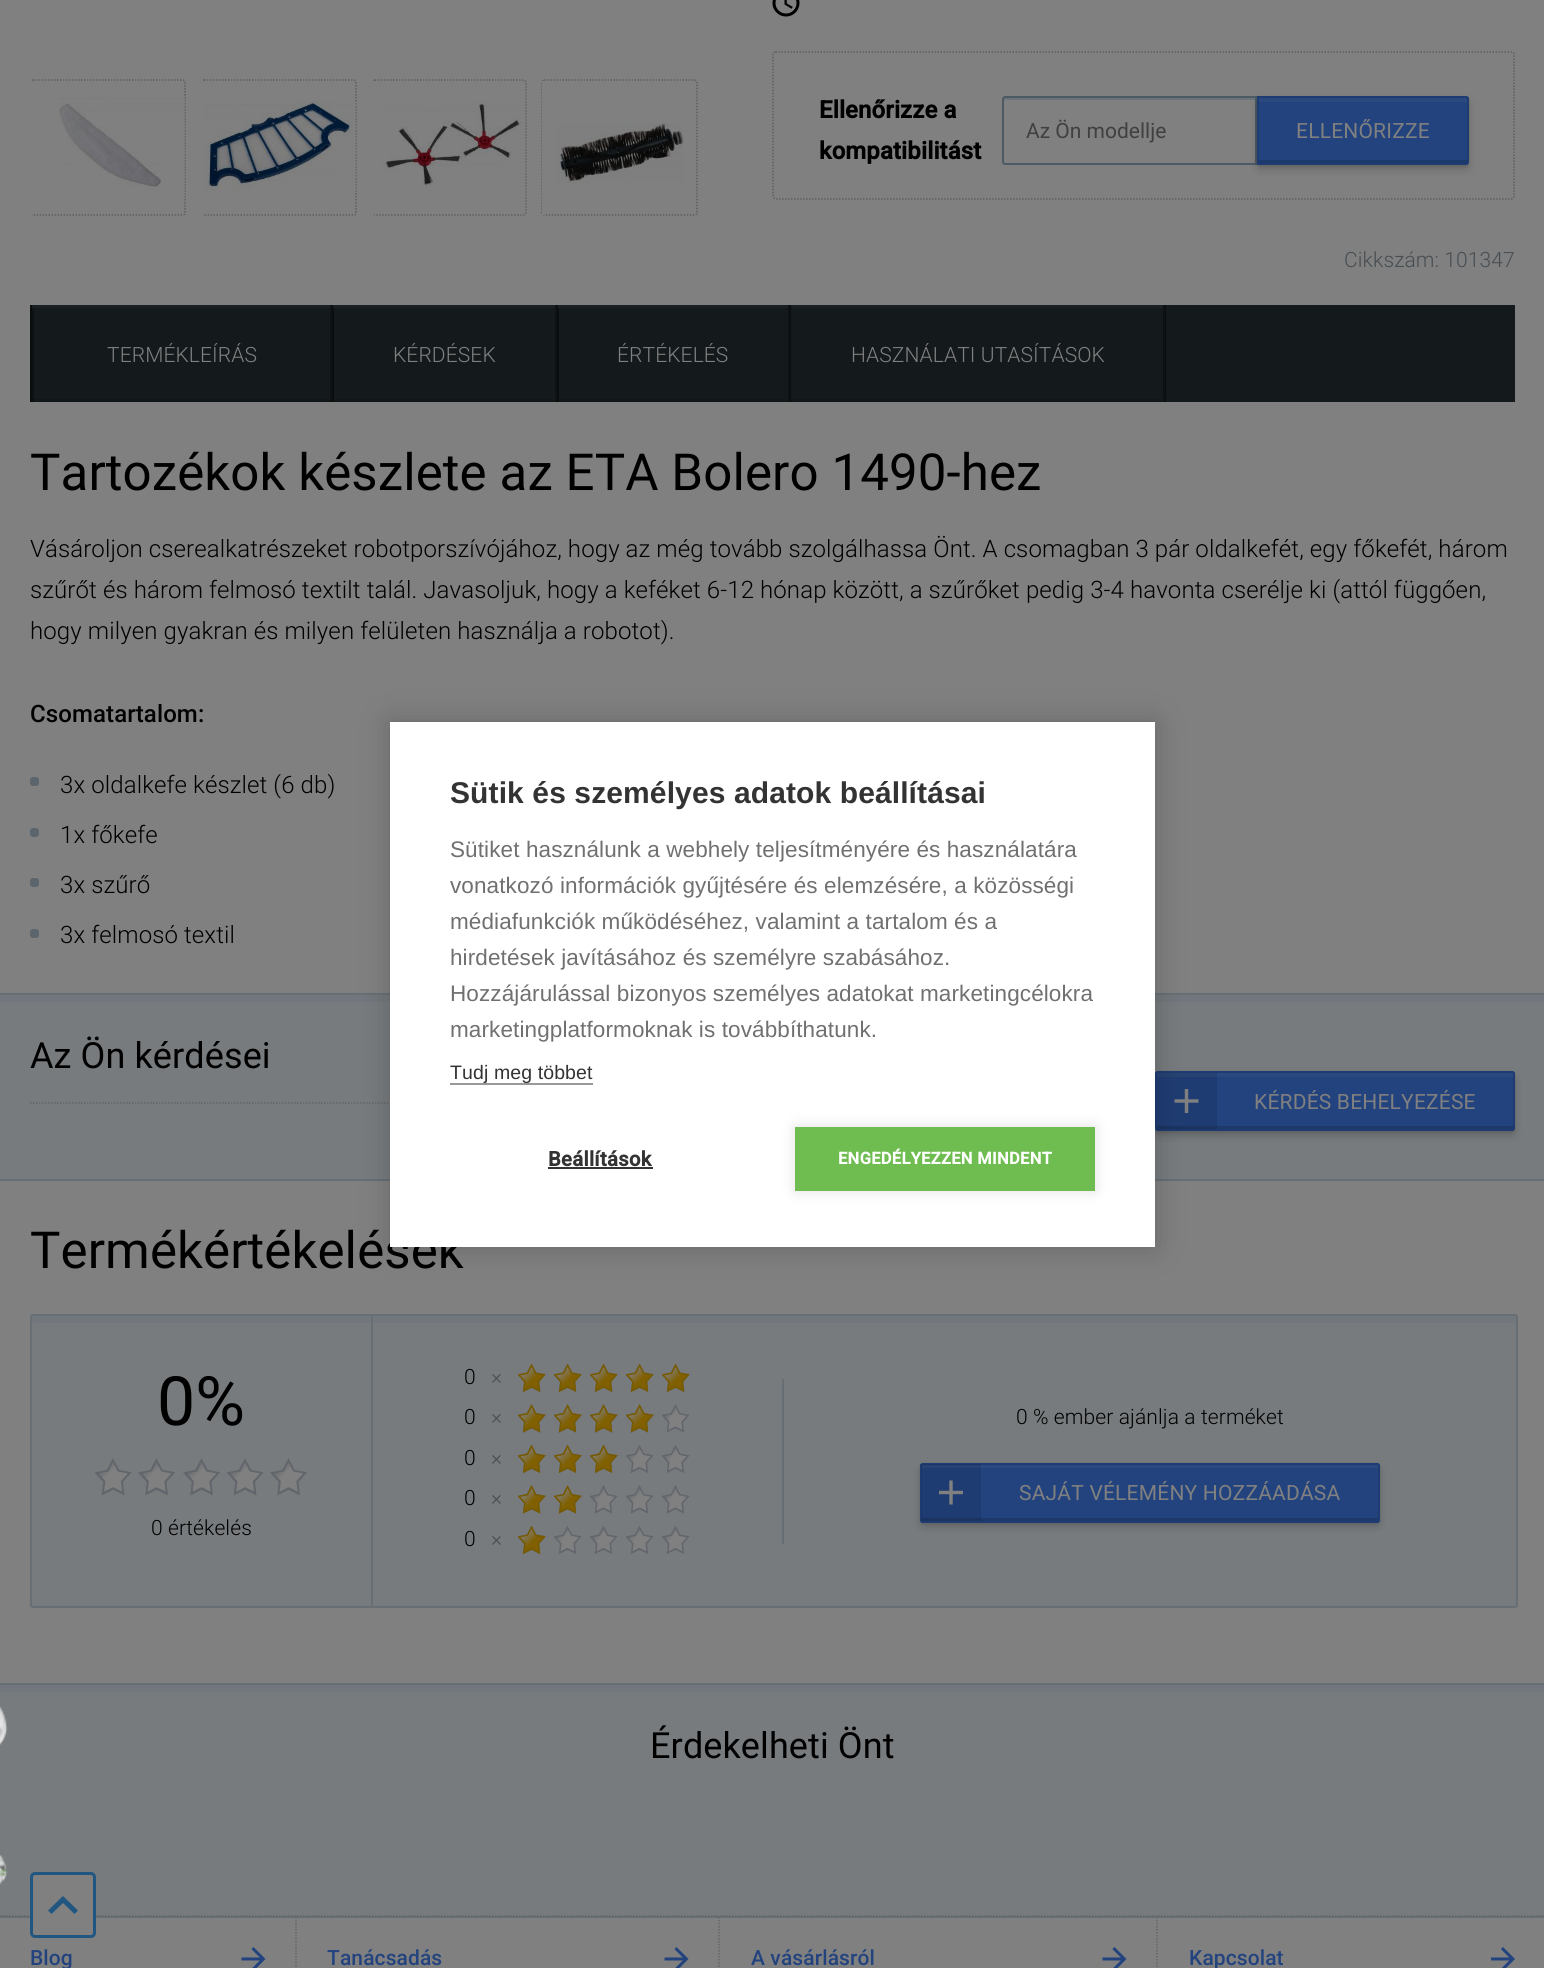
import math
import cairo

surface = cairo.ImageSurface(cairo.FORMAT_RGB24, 1544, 1968)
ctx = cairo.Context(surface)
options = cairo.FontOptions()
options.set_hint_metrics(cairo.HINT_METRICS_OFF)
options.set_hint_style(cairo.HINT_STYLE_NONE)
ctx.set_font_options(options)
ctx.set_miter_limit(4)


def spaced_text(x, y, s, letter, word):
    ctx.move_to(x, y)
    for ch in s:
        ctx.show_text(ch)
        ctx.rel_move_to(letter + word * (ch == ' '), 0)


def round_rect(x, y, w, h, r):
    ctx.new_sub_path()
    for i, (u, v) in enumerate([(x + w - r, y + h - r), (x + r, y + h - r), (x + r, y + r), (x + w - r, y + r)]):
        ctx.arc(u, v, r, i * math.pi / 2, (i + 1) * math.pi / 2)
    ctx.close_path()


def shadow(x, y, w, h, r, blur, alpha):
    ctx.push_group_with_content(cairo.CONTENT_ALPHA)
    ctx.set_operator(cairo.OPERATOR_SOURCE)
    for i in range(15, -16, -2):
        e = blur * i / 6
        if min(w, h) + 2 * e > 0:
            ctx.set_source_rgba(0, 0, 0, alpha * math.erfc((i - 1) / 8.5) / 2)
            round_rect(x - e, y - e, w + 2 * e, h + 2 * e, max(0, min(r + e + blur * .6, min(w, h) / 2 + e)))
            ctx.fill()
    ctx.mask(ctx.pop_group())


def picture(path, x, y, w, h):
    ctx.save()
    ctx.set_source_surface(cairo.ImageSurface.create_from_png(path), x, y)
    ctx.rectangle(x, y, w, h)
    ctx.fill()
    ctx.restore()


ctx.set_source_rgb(0.502, 0.502, 0.502)
ctx.paint()
ctx.new_path()
ctx.move_to(33, 80)
ctx.line_to(183, 80)
ctx.curve_to(184, 80, 185, 81.5, 185, 82.5)
ctx.line_to(185, 213)
ctx.curve_to(185, 214, 184, 215, 183, 215)
ctx.line_to(33, 215)
ctx.curve_to(32, 215, 31, 214, 31, 213)
ctx.line_to(31, 82.5)
ctx.curve_to(31, 81.5, 32, 80, 33, 80)
ctx.close_path()
ctx.set_source_rgb(0.365, 0.369, 0.38)
ctx.set_line_width(1.5)
ctx.set_dash([1.5, 1.5])
ctx.stroke()
ctx.set_source_rgb(0.502, 0.502, 0.502)
ctx.rectangle(30, 81, 2, 134)
ctx.fill()
picture("img1.png", 59, 97, 126, 101)
ctx.new_path()
ctx.move_to(204, 80)
ctx.line_to(354, 80)
ctx.curve_to(355, 80, 356, 81.5, 356, 82.5)
ctx.line_to(356, 213)
ctx.curve_to(356, 214, 355, 215, 354, 215)
ctx.line_to(204, 215)
ctx.curve_to(203, 215, 202, 214, 202, 213)
ctx.line_to(202, 82.5)
ctx.curve_to(202, 81.5, 203, 80, 204, 80)
ctx.close_path()
ctx.set_source_rgb(0.365, 0.369, 0.38)
ctx.stroke()
ctx.set_source_rgb(0.502, 0.502, 0.502)
ctx.rectangle(201, 81, 2, 134)
ctx.fill()
picture("img2.png", 202, 101, 154, 91)
ctx.new_path()
ctx.move_to(375, 80)
ctx.line_to(523.5, 80)
ctx.curve_to(524.5, 80, 526, 81.5, 526, 82.5)
ctx.line_to(526, 213)
ctx.curve_to(526, 214, 524.5, 215, 523.5, 215)
ctx.line_to(375, 215)
ctx.curve_to(374, 215, 373, 214, 373, 213)
ctx.line_to(373, 82.5)
ctx.curve_to(373, 81.5, 374, 80, 375, 80)
ctx.close_path()
ctx.set_source_rgb(0.365, 0.369, 0.38)
ctx.stroke()
ctx.set_source_rgb(0.502, 0.502, 0.502)
ctx.rectangle(372, 81, 2, 134)
ctx.fill()
picture("img3.png", 383, 102, 138, 84)
ctx.new_path()
ctx.move_to(544.5, 80)
ctx.line_to(694.5, 80)
ctx.curve_to(695.5, 80, 697, 81.5, 697, 82.5)
ctx.line_to(697, 213)
ctx.curve_to(697, 214, 695.5, 215, 694.5, 215)
ctx.line_to(544.5, 215)
ctx.curve_to(543.5, 215, 542, 214, 542, 213)
ctx.line_to(542, 82.5)
ctx.curve_to(542, 81.5, 543.5, 80, 544.5, 80)
ctx.close_path()
ctx.set_source_rgb(0.365, 0.369, 0.38)
ctx.stroke()
ctx.set_source_rgb(0.502, 0.502, 0.502)
ctx.rectangle(542, 81, 2, 134)
ctx.fill()
picture("img4.png", 555, 123, 129, 60)
picture("img5.png", 772, 0, 28, 17)
ctx.new_path()
ctx.move_to(775.5, 52)
ctx.line_to(1512, 52)
ctx.curve_to(1513, 52, 1514, 53, 1514, 54)
ctx.line_to(1514, 196.5)
ctx.curve_to(1514, 197.5, 1513, 199, 1512, 199)
ctx.line_to(775.5, 199)
ctx.curve_to(774.5, 199, 773, 197.5, 773, 196.5)
ctx.line_to(773, 54)
ctx.curve_to(773, 53, 774.5, 52, 775.5, 52)
ctx.close_path()
ctx.set_source_rgb(0.365, 0.369, 0.38)
ctx.stroke()
ctx.select_font_face("Roboto", cairo.FONT_SLANT_NORMAL, cairo.FONT_WEIGHT_BOLD)
ctx.set_font_size(24)
ctx.set_source_rgb(0, 0, 0)
spaced_text(819, 118, "Ellenőrizze a", 0.11, 0)
spaced_text(819, 159, "kompatibilitást", 0.11, 0)
ctx.set_source_rgb(0.42, 0.455, 0.478)
ctx.new_path()
ctx.move_to(1005, 100)
ctx.line_to(1256, 100)
ctx.line_to(1256, 98)
ctx.line_to(1005, 98)
ctx.curve_to(1003, 98, 1004, 101, 1004, 102)
ctx.curve_to(1004, 101, 1004, 100, 1005, 100)
ctx.close_path()
ctx.fill()
ctx.new_path()
ctx.move_to(1005, 97)
ctx.line_to(1256, 97)
ctx.line_to(1256, 164)
ctx.line_to(1005, 164)
ctx.curve_to(1004, 164, 1003, 163, 1003, 162)
ctx.line_to(1003, 99)
ctx.curve_to(1003, 98, 1004, 97, 1005, 97)
ctx.close_path()
ctx.set_source_rgb(0.298, 0.353, 0.388)
ctx.set_line_width(2)
ctx.set_dash([])
ctx.stroke()
ctx.select_font_face("Roboto")
ctx.set_font_size(21)
ctx.set_source_rgb(0.251, 0.251, 0.251)
ctx.move_to(1026, 138)
ctx.show_text("Az Ön modellje")
ctx.set_source_rgb(0, 0, 0)
shadow(1257, 98, 212, 69, 3, 1.5, 0.1)
shadow(1257, 101, 212, 69, 3, 4.5, 0.15)
ctx.set_source_rgb(0.133, 0.263, 0.494)
ctx.new_path()
ctx.move_to(1257, 96)
ctx.line_to(1466, 96)
ctx.curve_to(1467.5, 96, 1469, 97.5, 1469, 99)
ctx.line_to(1469, 162)
ctx.curve_to(1469, 163.5, 1467.5, 165, 1466, 165)
ctx.line_to(1257, 165)
ctx.close_path()
ctx.fill()
ctx.set_source_rgb(0.169, 0.286, 0.494)
ctx.new_path()
ctx.move_to(1259, 98)
ctx.line_to(1259, 102)
ctx.line_to(1466, 102)
ctx.line_to(1467, 104)
ctx.curve_to(1467, 103, 1468, 98, 1466, 98)
ctx.close_path()
ctx.fill()
ctx.set_source_rgb(0.114, 0.224, 0.42)
ctx.new_path()
ctx.move_to(1259, 160)
ctx.line_to(1259, 164)
ctx.line_to(1466, 164)
ctx.curve_to(1468, 163, 1467, 160, 1467, 159)
ctx.line_to(1466, 160)
ctx.close_path()
ctx.fill()
ctx.new_path()
ctx.move_to(1258, 97)
ctx.line_to(1466, 97)
ctx.curve_to(1467, 97, 1468, 98, 1468, 99)
ctx.line_to(1468, 162)
ctx.curve_to(1468, 163, 1467, 164, 1466, 164)
ctx.line_to(1258, 164)
ctx.close_path()
ctx.set_source_rgb(0.118, 0.235, 0.443)
ctx.stroke()
ctx.set_source_rgb(0.502, 0.502, 0.502)
spaced_text(1296, 138, "ELLENŐRIZZE", 0.2, 0)
ctx.select_font_face("Roboto Light")
ctx.set_source_rgb(0.275, 0.302, 0.322)
spaced_text(1344, 267, "Cikkszám: 101347", 0.11, 0)
ctx.set_source_rgb(0.082, 0.102, 0.11)
ctx.rectangle(32, 305, 1483, 97)
ctx.fill()
ctx.set_source_rgb(0.071, 0.086, 0.094)
ctx.rectangle(558, 399, 231, 3)
ctx.fill()
ctx.rectangle(333, 399, 224, 3)
ctx.fill()
ctx.set_source_rgb(0.039, 0.051, 0.055)
ctx.rectangle(332, 305, 2, 97)
ctx.fill()
ctx.rectangle(30, 305, 2, 97)
ctx.fill()
ctx.set_source_rgb(0.059, 0.071, 0.078)
round_rect(32, 305, 2, 97, 1)
ctx.fill()
ctx.set_source_rgba(0, 0, 0, 0.15)
ctx.rectangle(32, 399, 300, 3)
ctx.fill()
ctx.set_source_rgb(0.098, 0.122, 0.133)
ctx.rectangle(32, 305, 300, 3)
ctx.fill()
ctx.set_source_rgb(0.502, 0.502, 0.502)
spaced_text(107, 362, "TERMÉKLEÍRÁS", 0.11, 0)
ctx.set_source_rgb(0.059, 0.071, 0.078)
ctx.rectangle(330, 305, 2, 97)
ctx.fill()
ctx.set_source_rgb(0.039, 0.051, 0.055)
ctx.rectangle(557, 305, 2, 97)
ctx.fill()
ctx.set_source_rgb(0.098, 0.122, 0.133)
ctx.rectangle(333, 305, 224, 3)
ctx.fill()
ctx.set_source_rgb(0.502, 0.502, 0.502)
spaced_text(393, 362, "KÉRDÉSEK", 0.11, 0)
ctx.set_source_rgb(0.059, 0.071, 0.078)
ctx.rectangle(555, 305, 2, 97)
ctx.fill()
ctx.set_source_rgb(0.039, 0.051, 0.055)
ctx.rectangle(790, 305, 1, 97)
ctx.fill()
ctx.set_source_rgb(0.098, 0.122, 0.133)
ctx.rectangle(558, 305, 231, 3)
ctx.fill()
ctx.set_source_rgb(0.502, 0.502, 0.502)
spaced_text(617, 362, "ÉRTÉKELÉS", 0.11, 0)
ctx.set_source_rgb(0.059, 0.071, 0.078)
ctx.rectangle(788, 305, 2, 97)
ctx.fill()
ctx.set_source_rgb(0.039, 0.051, 0.055)
ctx.rectangle(1165, 305, 1, 97)
ctx.fill()
ctx.set_source_rgb(0.071, 0.086, 0.094)
ctx.rectangle(791, 399, 373, 3)
ctx.fill()
ctx.set_source_rgb(0.098, 0.122, 0.133)
ctx.rectangle(791, 305, 373, 3)
ctx.fill()
ctx.set_source_rgb(0.502, 0.502, 0.502)
spaced_text(851, 362, "HASZNÁLATI UTASÍTÁSOK", 0.11, 0)
ctx.set_source_rgb(0.059, 0.071, 0.078)
ctx.rectangle(1163, 305, 2, 97)
ctx.fill()
ctx.select_font_face("Roboto")
ctx.set_font_size(51)
ctx.set_source_rgb(0, 0, 0)
spaced_text(30, 490, "Tartozékok készlete az ETA Bolero 1490-hez", 0.11, 0)
ctx.select_font_face("Roboto Light")
ctx.set_font_size(24)
spaced_text(30, 557, "Vásároljon cserealkatrészeket robotporszívójához, hogy az még tovább szolgálhassa Önt. A csomagban 3 pár oldalkefét, egy főkefét, három", 0.11, 0)
spaced_text(30, 598, "szűrőt és három felmosó textilt talál. Javasoljuk, hogy a keféket 6-12 hónap között, a szűrőket pedig 3-4 havonta cserélje ki (attól függően,", 0.11, 0)
spaced_text(30, 639, "hogy milyen gyakran és milyen felületen használja a robotot).", 0.11, 0)
ctx.select_font_face("Roboto Medium")
spaced_text(30, 722, "Csomatartalom:", 0.11, 0)
ctx.set_source_rgb(0.353, 0.396, 0.427)
round_rect(30, 777, 9, 9, 3)
ctx.fill()
ctx.select_font_face("Roboto Light")
ctx.set_source_rgb(0, 0, 0)
spaced_text(60, 793, "3x oldalkefe készlet (6 db)", 0.11, 0)
ctx.set_source_rgb(0.353, 0.396, 0.427)
round_rect(30, 828, 9, 9, 3)
ctx.fill()
ctx.set_source_rgb(0, 0, 0)
spaced_text(60, 843, "1x főkefe", 0.11, 0)
ctx.set_source_rgb(0.353, 0.396, 0.427)
round_rect(30, 878, 9, 9, 3)
ctx.fill()
ctx.set_source_rgb(0, 0, 0)
spaced_text(60, 893, "3x szűrő", 0.11, 0)
ctx.set_source_rgb(0.353, 0.396, 0.427)
round_rect(30, 929, 9, 9, 3)
ctx.fill()
ctx.set_source_rgb(0, 0, 0)
spaced_text(60, 943, "3x felmosó textil", 0.11, 0)
ctx.set_source_rgb(0.467, 0.482, 0.49)
ctx.rectangle(0, 1002, 1544, 177)
ctx.fill()
ctx.set_source_rgb(0.443, 0.467, 0.486)
ctx.rectangle(0, 995, 1544, 7)
ctx.fill()
ctx.set_source_rgb(0.404, 0.435, 0.455)
ctx.rectangle(0, 993, 1544, 2)
ctx.fill()
ctx.rectangle(0, 1179, 1544, 2)
ctx.fill()
ctx.select_font_face("Roboto")
ctx.set_font_size(36)
ctx.set_source_rgb(0, 0, 0)
spaced_text(30, 1068, "Az Ön kérdései", 0.11, 0)
ctx.new_path()
ctx.move_to(30, 1103)
ctx.line_to(1515, 1103)
ctx.set_source_rgb(0.392, 0.392, 0.392)
ctx.set_line_width(1.5)
ctx.set_dash([1.5, 1.5])
ctx.stroke()
ctx.set_source_rgb(0, 0, 0)
shadow(1155, 1073, 360, 60, 3, 1.5, 0.1)
shadow(1155, 1076, 360, 60, 3, 4.5, 0.15)
ctx.set_source_rgb(0.133, 0.263, 0.494)
round_rect(1155, 1071, 360, 60, 3)
ctx.fill()
ctx.set_source_rgb(0.169, 0.286, 0.494)
ctx.new_path()
ctx.move_to(1158, 1077)
ctx.line_to(1512, 1077)
ctx.curve_to(1513, 1077, 1514, 1078, 1514, 1078)
ctx.curve_to(1514, 1077, 1515, 1073, 1512, 1073)
ctx.line_to(1158, 1073)
ctx.curve_to(1156, 1073, 1157, 1076, 1157, 1077)
ctx.close_path()
ctx.fill()
ctx.set_source_rgb(0.114, 0.224, 0.42)
ctx.new_path()
ctx.move_to(1157, 1126)
ctx.line_to(1157, 1128)
ctx.curve_to(1157, 1129, 1158, 1130, 1158, 1130)
ctx.line_to(1512, 1130)
ctx.curve_to(1513, 1130, 1514, 1129, 1514, 1128)
ctx.line_to(1514, 1125)
ctx.curve_to(1514, 1126, 1513, 1126, 1512, 1126)
ctx.close_path()
ctx.fill()
round_rect(1156, 1072, 358, 58, 2)
ctx.set_source_rgb(0.118, 0.235, 0.443)
ctx.set_line_width(2)
ctx.set_dash([])
ctx.stroke()
ctx.set_source_rgba(0, 0, 0, 0.1)
ctx.rectangle(1157, 1073, 60, 57)
ctx.fill()
picture("img6.png", 1174, 1089, 25, 24)
ctx.set_font_size(21)
ctx.set_source_rgb(0.502, 0.502, 0.502)
spaced_text(1254, 1109, "KÉRDÉS BEHELYEZÉSE", 0.2, 0)
ctx.set_font_size(51)
ctx.set_source_rgb(0, 0, 0)
spaced_text(30, 1268, "Termékértékelések", 0.11, 0)
ctx.set_source_rgb(0.467, 0.482, 0.49)
round_rect(30, 1314, 1488, 294, 3)
ctx.fill()
ctx.set_source_rgb(0.443, 0.467, 0.486)
ctx.new_path()
ctx.move_to(33, 1323)
ctx.line_to(1515, 1323)
ctx.curve_to(1516, 1323, 1516, 1324, 1516, 1324)
ctx.line_to(1516, 1607)
ctx.line_to(1517, 1606)
ctx.line_to(1517, 1318)
ctx.curve_to(1517, 1317, 1516, 1316, 1516, 1316)
ctx.line_to(34, 1316)
ctx.curve_to(31, 1316, 32, 1323, 32, 1324)
ctx.close_path()
ctx.fill()
round_rect(31, 1315, 1486, 292, 2)
ctx.set_source_rgb(0.404, 0.435, 0.455)
ctx.stroke()
ctx.rectangle(371, 1316, 2, 291)
ctx.fill()
ctx.set_font_size(68)
ctx.set_source_rgb(0, 0, 0)
spaced_text(157, 1425, "0%", 0.11, 0)
picture("img7.png", 95, 1458, 37, 38)
picture("img8.png", 138, 1458, 37, 38)
picture("img8.png", 183, 1458, 37, 38)
picture("img7.png", 227, 1458, 37, 38)
picture("img8.png", 270, 1458, 37, 38)
ctx.select_font_face("Roboto Light")
ctx.set_font_size(21)
spaced_text(151, 1535, "0 értékelés", 0.11, 0)
spaced_text(464, 1384, "0", 0.11, 0)
ctx.set_source_rgb(0.275, 0.302, 0.322)
spaced_text(491, 1384, "×", 0.11, 0)
picture("img9.png", 518, 1364, 28, 28)
picture("img10.png", 518, 1364, 30, 30)
picture("img9.png", 554, 1364, 28, 28)
picture("img10.png", 554, 1364, 30, 30)
picture("img9.png", 590, 1364, 28, 28)
picture("img10.png", 590, 1364, 30, 30)
picture("img9.png", 626, 1364, 28, 28)
picture("img10.png", 626, 1364, 30, 30)
picture("img9.png", 662, 1364, 28, 28)
picture("img10.png", 662, 1364, 30, 30)
ctx.set_source_rgb(0, 0, 0)
spaced_text(464, 1424, "0", 0.11, 0)
ctx.set_source_rgb(0.275, 0.302, 0.322)
spaced_text(491, 1424, "×", 0.11, 0)
picture("img11.png", 518, 1404, 28, 29)
picture("img12.png", 518, 1404, 30, 29)
picture("img11.png", 554, 1404, 28, 29)
picture("img12.png", 554, 1404, 30, 29)
picture("img11.png", 590, 1404, 28, 29)
picture("img12.png", 590, 1404, 30, 29)
picture("img11.png", 626, 1404, 28, 29)
picture("img12.png", 626, 1404, 30, 29)
picture("img11.png", 662, 1404, 28, 29)
ctx.set_source_rgb(0, 0, 0)
spaced_text(464, 1465, "0", 0.11, 0)
ctx.set_source_rgb(0.275, 0.302, 0.322)
spaced_text(491, 1465, "×", 0.11, 0)
picture("img9.png", 518, 1445, 28, 28)
picture("img10.png", 518, 1445, 30, 30)
picture("img9.png", 554, 1445, 28, 28)
picture("img10.png", 554, 1445, 30, 30)
picture("img9.png", 590, 1445, 28, 28)
picture("img10.png", 590, 1445, 30, 30)
picture("img9.png", 626, 1445, 28, 28)
picture("img9.png", 662, 1445, 28, 28)
ctx.set_source_rgb(0, 0, 0)
spaced_text(464, 1505, "0", 0.11, 0)
ctx.set_source_rgb(0.275, 0.302, 0.322)
spaced_text(491, 1505, "×", 0.11, 0)
picture("img11.png", 518, 1485, 28, 29)
picture("img12.png", 518, 1485, 30, 29)
picture("img11.png", 554, 1485, 28, 29)
picture("img12.png", 554, 1485, 30, 29)
picture("img11.png", 590, 1485, 28, 29)
picture("img11.png", 626, 1485, 28, 29)
picture("img11.png", 662, 1485, 28, 29)
ctx.set_source_rgb(0, 0, 0)
spaced_text(464, 1546, "0", 0.11, 0)
ctx.set_source_rgb(0.275, 0.302, 0.322)
spaced_text(491, 1546, "×", 0.11, 0)
picture("img9.png", 518, 1526, 28, 28)
picture("img10.png", 518, 1526, 30, 30)
picture("img9.png", 554, 1526, 28, 28)
picture("img9.png", 590, 1526, 28, 28)
picture("img9.png", 626, 1526, 28, 28)
picture("img9.png", 662, 1526, 28, 28)
ctx.set_source_rgb(0.404, 0.435, 0.455)
ctx.rectangle(782, 1379, 2, 165)
ctx.fill()
ctx.set_source_rgb(0, 0, 0)
spaced_text(1016, 1424, "0 % ember ajánlja a terméket", 0.11, 0)
ctx.set_source_rgb(0, 0, 0)
shadow(920, 1464, 460, 60, 3, 1.5, 0.1)
shadow(920, 1467, 460, 60, 3, 4.5, 0.15)
ctx.set_source_rgb(0.133, 0.263, 0.494)
round_rect(920, 1463, 460, 60, 3)
ctx.fill()
ctx.set_source_rgb(0.169, 0.286, 0.494)
ctx.new_path()
ctx.move_to(922, 1468)
ctx.line_to(1377, 1468)
ctx.curve_to(1378, 1468, 1378, 1469, 1378, 1470)
ctx.line_to(1378, 1521)
ctx.curve_to(1379, 1521, 1379, 1520, 1379, 1520)
ctx.line_to(1379, 1466)
ctx.curve_to(1379, 1465, 1378, 1464, 1378, 1464)
ctx.line_to(922, 1464)
ctx.curve_to(922, 1464, 921, 1465, 921, 1466)
ctx.line_to(921, 1470)
ctx.close_path()
ctx.fill()
ctx.set_source_rgba(0, 0, 0, 0.15)
ctx.new_path()
ctx.move_to(921, 1516)
ctx.curve_to(921, 1517, 920, 1521, 922, 1521)
ctx.line_to(1378, 1521)
ctx.curve_to(1378, 1521, 1379, 1520, 1379, 1520)
ctx.line_to(1379, 1466)
ctx.line_to(1378, 1464)
ctx.line_to(1378, 1516)
ctx.curve_to(1378, 1517, 1378, 1518, 1377, 1518)
ctx.line_to(922, 1518)
ctx.close_path()
ctx.fill()
round_rect(921, 1464, 458, 58, 2)
ctx.set_source_rgb(0.118, 0.235, 0.443)
ctx.stroke()
ctx.set_source_rgba(0, 0, 0, 0.1)
ctx.rectangle(921, 1464, 60, 57)
ctx.fill()
picture("img13.png", 939, 1480, 24, 25)
ctx.select_font_face("Roboto")
ctx.set_source_rgb(0.502, 0.502, 0.502)
spaced_text(1019, 1500, "SAJÁT VÉLEMÉNY HOZZÁADÁSA", 0.2, 0)
ctx.set_source_rgb(0.467, 0.482, 0.49)
ctx.rectangle(0, 1692, 1544, 224)
ctx.fill()
ctx.set_source_rgb(0.443, 0.467, 0.486)
ctx.rectangle(0, 1685, 1544, 7)
ctx.fill()
ctx.set_source_rgb(0.404, 0.435, 0.455)
ctx.rectangle(0, 1683, 1544, 2)
ctx.fill()
ctx.rectangle(0, 1916, 1544, 2)
ctx.fill()
ctx.set_font_size(36)
ctx.set_source_rgb(0, 0, 0)
spaced_text(650, 1758, "Érdekelheti Önt", 0.11, 0)
ctx.set_source_rgb(0, 0, 0)
shadow(390, 722, 765, 525, 0, 15, 0.2)
ctx.set_source_rgb(1, 1, 1)
ctx.rectangle(390, 722, 765, 525)
ctx.fill()
ctx.select_font_face("Liberation Sans", cairo.FONT_SLANT_NORMAL, cairo.FONT_WEIGHT_BOLD)
ctx.set_font_size(30)
ctx.set_source_rgb(0.2, 0.2, 0.2)
spaced_text(450, 803, "Sütik és személyes adatok beállításai", 0.11, 0)
ctx.select_font_face("Liberation Sans")
ctx.set_font_size(22.5)
ctx.set_source_rgb(0.439, 0.439, 0.439)
spaced_text(450, 857, "Sütiket használunk a webhely teljesítményére és használatára", 0.11, 0)
spaced_text(450, 893, "vonatkozó információk gyűjtésére és elemzésére, a közösségi", 0.11, 0)
spaced_text(450, 929, "médiafunkciók működéséhez, valamint a tartalom és a", 0.11, 0)
spaced_text(450, 965, "hirdetések javításához és személyre szabásához.", 0.11, 0)
spaced_text(450, 1001, "Hozzájárulással bizonyos személyes adatokat marketingcélokra", 0.11, 0)
spaced_text(450, 1037, "marketingplatformoknak is továbbíthatunk.", 0.11, 0)
ctx.set_source_rgb(0.6, 0.6, 0.6)
ctx.rectangle(450, 1083, 143, 2)
ctx.fill()
ctx.set_font_size(19.5)
ctx.set_source_rgb(0.2, 0.2, 0.2)
spaced_text(450, 1079, "Tudj meg többet", 0.11, 0)
ctx.select_font_face("Roboto", cairo.FONT_SLANT_NORMAL, cairo.FONT_WEIGHT_BOLD)
ctx.set_font_size(20.25)
spaced_text(548, 1166, "Beállítások", 0.3, 0)
ctx.rectangle(548, 1167, 105, 2)
ctx.fill()
ctx.set_source_rgb(0, 0, 0)
shadow(795, 1127, 300, 64, 0, 7.5, 0.12)
ctx.set_source_rgb(0.435, 0.737, 0.314)
ctx.rectangle(795, 1127, 300, 64)
ctx.fill()
ctx.set_font_size(16.5)
ctx.set_source_rgb(1, 1, 1)
spaced_text(838, 1164, "ENGEDÉLYEZZEN MINDENT", 0.3, 0)
picture("img14.png", 0, 1706, 8, 179)
ctx.new_path()
ctx.move_to(0, 1916)
ctx.line_to(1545, 1916)
ctx.set_source_rgb(0.392, 0.392, 0.392)
ctx.set_line_width(1.5)
ctx.set_dash([1.5, 1.5])
ctx.stroke()
ctx.set_source_rgb(0.502, 0.502, 0.502)
round_rect(31.5, 1873.5, 63, 63, 3.5)
ctx.fill_preserve()
ctx.set_source_rgb(0.125, 0.337, 0.502)
ctx.set_line_width(3)
ctx.set_dash([])
ctx.stroke()
ctx.new_path()
ctx.move_to(51.5, 1914)
ctx.line_to(48, 1910.5)
ctx.line_to(63, 1896)
ctx.line_to(78, 1910.5)
ctx.line_to(74.5, 1914)
ctx.line_to(63, 1903)
ctx.close_path()
ctx.fill()
ctx.select_font_face("Roboto Medium")
ctx.set_font_size(21)
ctx.set_source_rgb(0.133, 0.263, 0.494)
spaced_text(30, 1965, "Blog", 0.11, 0)
picture("img15.png", 241, 1947, 25, 21)
ctx.new_path()
ctx.move_to(296, 1917)
ctx.line_to(296, 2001)
ctx.set_source_rgb(0.392, 0.392, 0.392)
ctx.set_line_width(1.5)
ctx.set_dash([1.5, 1.5])
ctx.stroke()
ctx.set_source_rgb(0.133, 0.263, 0.494)
spaced_text(327, 1965, "Tanácsadás", 0.11, 0)
picture("img15.png", 664, 1947, 25, 21)
ctx.new_path()
ctx.move_to(719, 1917)
ctx.line_to(719, 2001)
ctx.set_source_rgb(0.392, 0.392, 0.392)
ctx.stroke()
ctx.set_source_rgb(0.133, 0.263, 0.494)
spaced_text(751, 1965, "A vásárlásról", 0.11, 0)
picture("img15.png", 1102, 1947, 25, 21)
ctx.new_path()
ctx.move_to(1157, 1917)
ctx.line_to(1157, 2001)
ctx.set_source_rgb(0.392, 0.392, 0.392)
ctx.stroke()
ctx.set_source_rgb(0.133, 0.263, 0.494)
spaced_text(1189, 1965, "Kapcsolat", 0.11, 0)
picture("img16.png", 1491, 1947, 24, 21)
surface.write_to_png("page.png")
